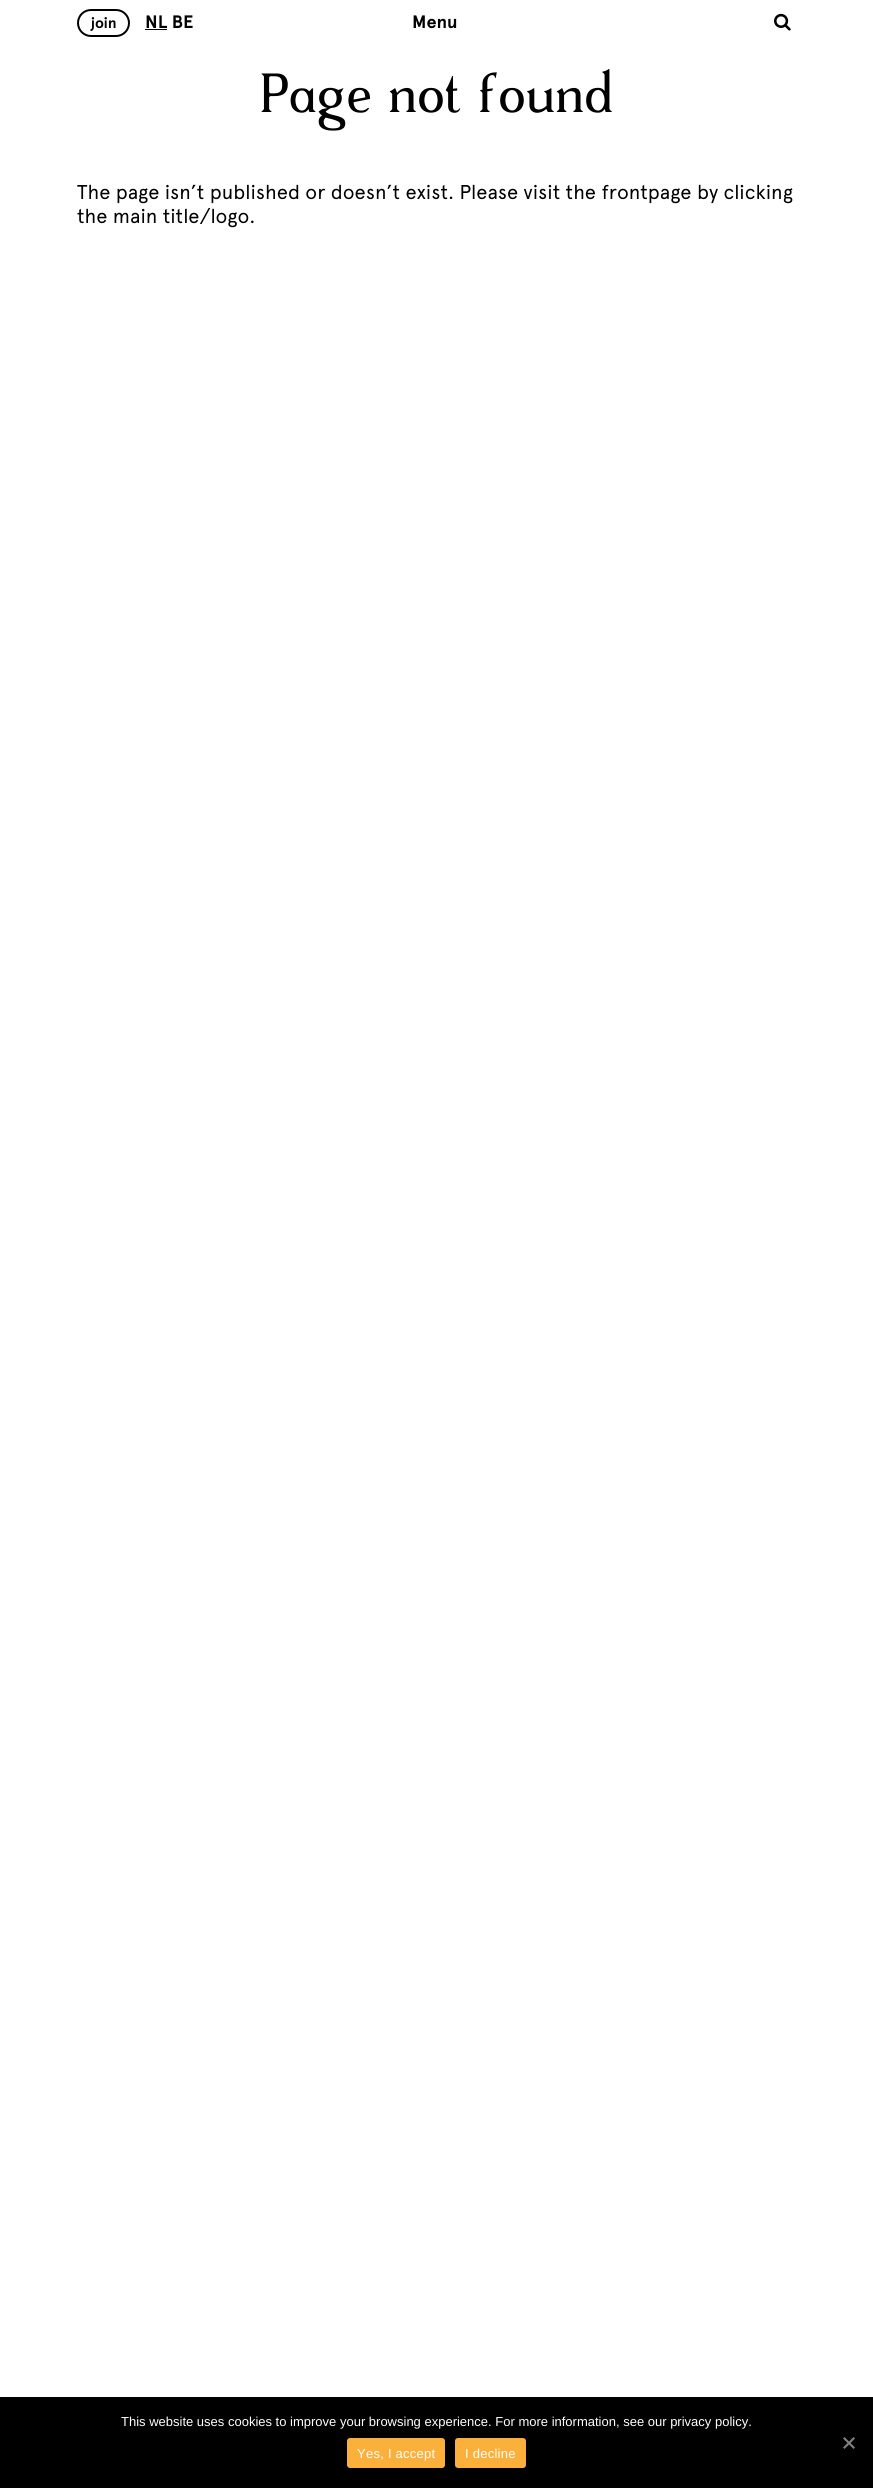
import math
import cairo

surface = cairo.ImageSurface(cairo.FORMAT_RGB24, 873, 2488)
ctx = cairo.Context(surface)
options = cairo.FontOptions()
options.set_hint_metrics(cairo.HINT_METRICS_OFF)
options.set_hint_style(cairo.HINT_STYLE_NONE)
ctx.set_font_options(options)
ctx.set_miter_limit(4)


def spaced_text(x, y, s, letter, word):
    ctx.move_to(x, y)
    for ch in s:
        ctx.show_text(ch)
        ctx.rel_move_to(letter + word * (ch == ' '), 0)


def round_rect(x, y, w, h, r):
    ctx.new_sub_path()
    for i, (u, v) in enumerate([(x + w - r, y + h - r), (x + r, y + h - r), (x + r, y + r), (x + w - r, y + r)]):
        ctx.arc(u, v, r, i * math.pi / 2, (i + 1) * math.pi / 2)
    ctx.close_path()


def picture(path, x, y, w, h):
    ctx.save()
    ctx.set_source_surface(cairo.ImageSurface.create_from_png(path), x, y)
    ctx.rectangle(x, y, w, h)
    ctx.fill()
    ctx.restore()


ctx.set_source_rgb(1, 1, 1)
ctx.paint()
round_rect(78, 10, 51, 26, 13)
ctx.set_source_rgb(0, 0, 0)
ctx.stroke()
ctx.select_font_face("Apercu", cairo.FONT_SLANT_NORMAL, cairo.FONT_WEIGHT_BOLD)
ctx.set_font_size(15)
ctx.move_to(91, 28)
ctx.show_text("join")
ctx.set_font_size(18)
ctx.move_to(145, 28)
ctx.show_text("NL BE")
ctx.rectangle(145, 29, 22, 1)
ctx.fill()
ctx.move_to(412, 28)
ctx.show_text("Menu")
picture("img1.png", 774, 13, 17, 18)
ctx.select_font_face("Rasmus")
ctx.set_font_size(55)
ctx.move_to(260, 112)
ctx.show_text("Page not found")
ctx.select_font_face("Apercu")
ctx.set_font_size(20)
ctx.move_to(77, 199)
ctx.show_text("The page isn’t published or doesn’t exist. Please visit the frontpage by clicking")
ctx.move_to(77, 223)
ctx.show_text("the main title/logo.")
ctx.rectangle(0, 2397, 873, 91)
ctx.fill()
ctx.select_font_face("Liberation Sans")
ctx.set_font_size(13)
ctx.set_source_rgb(1, 1, 1)
ctx.move_to(121, 2426)
ctx.show_text("This website uses cookies to improve your browsing experience. For more information, see our privacy policy.")
ctx.set_source_rgb(0.502, 0.502, 0.502)
ctx.new_path()
ctx.move_to(853.5, 2437)
ctx.line_to(855, 2438.5)
ctx.line_to(844.5, 2449)
ctx.line_to(843, 2447.5)
ctx.close_path()
ctx.fill()
ctx.new_path()
ctx.move_to(843, 2438.5)
ctx.line_to(844.5, 2437)
ctx.line_to(855, 2447.5)
ctx.line_to(853.5, 2449)
ctx.close_path()
ctx.fill()
ctx.set_source_rgb(0.984, 0.69, 0.231)
round_rect(347, 2438, 98, 30, 3)
ctx.fill()
ctx.set_source_rgb(1, 1, 1)
spaced_text(357, 2458, "Yes, I accept", 0.25, 0)
ctx.set_source_rgb(0.984, 0.69, 0.231)
round_rect(455, 2438, 71, 30, 3)
ctx.fill()
ctx.set_source_rgb(1, 1, 1)
spaced_text(465, 2458, "I decline", 0.25, 0)
surface.write_to_png("page.png")
